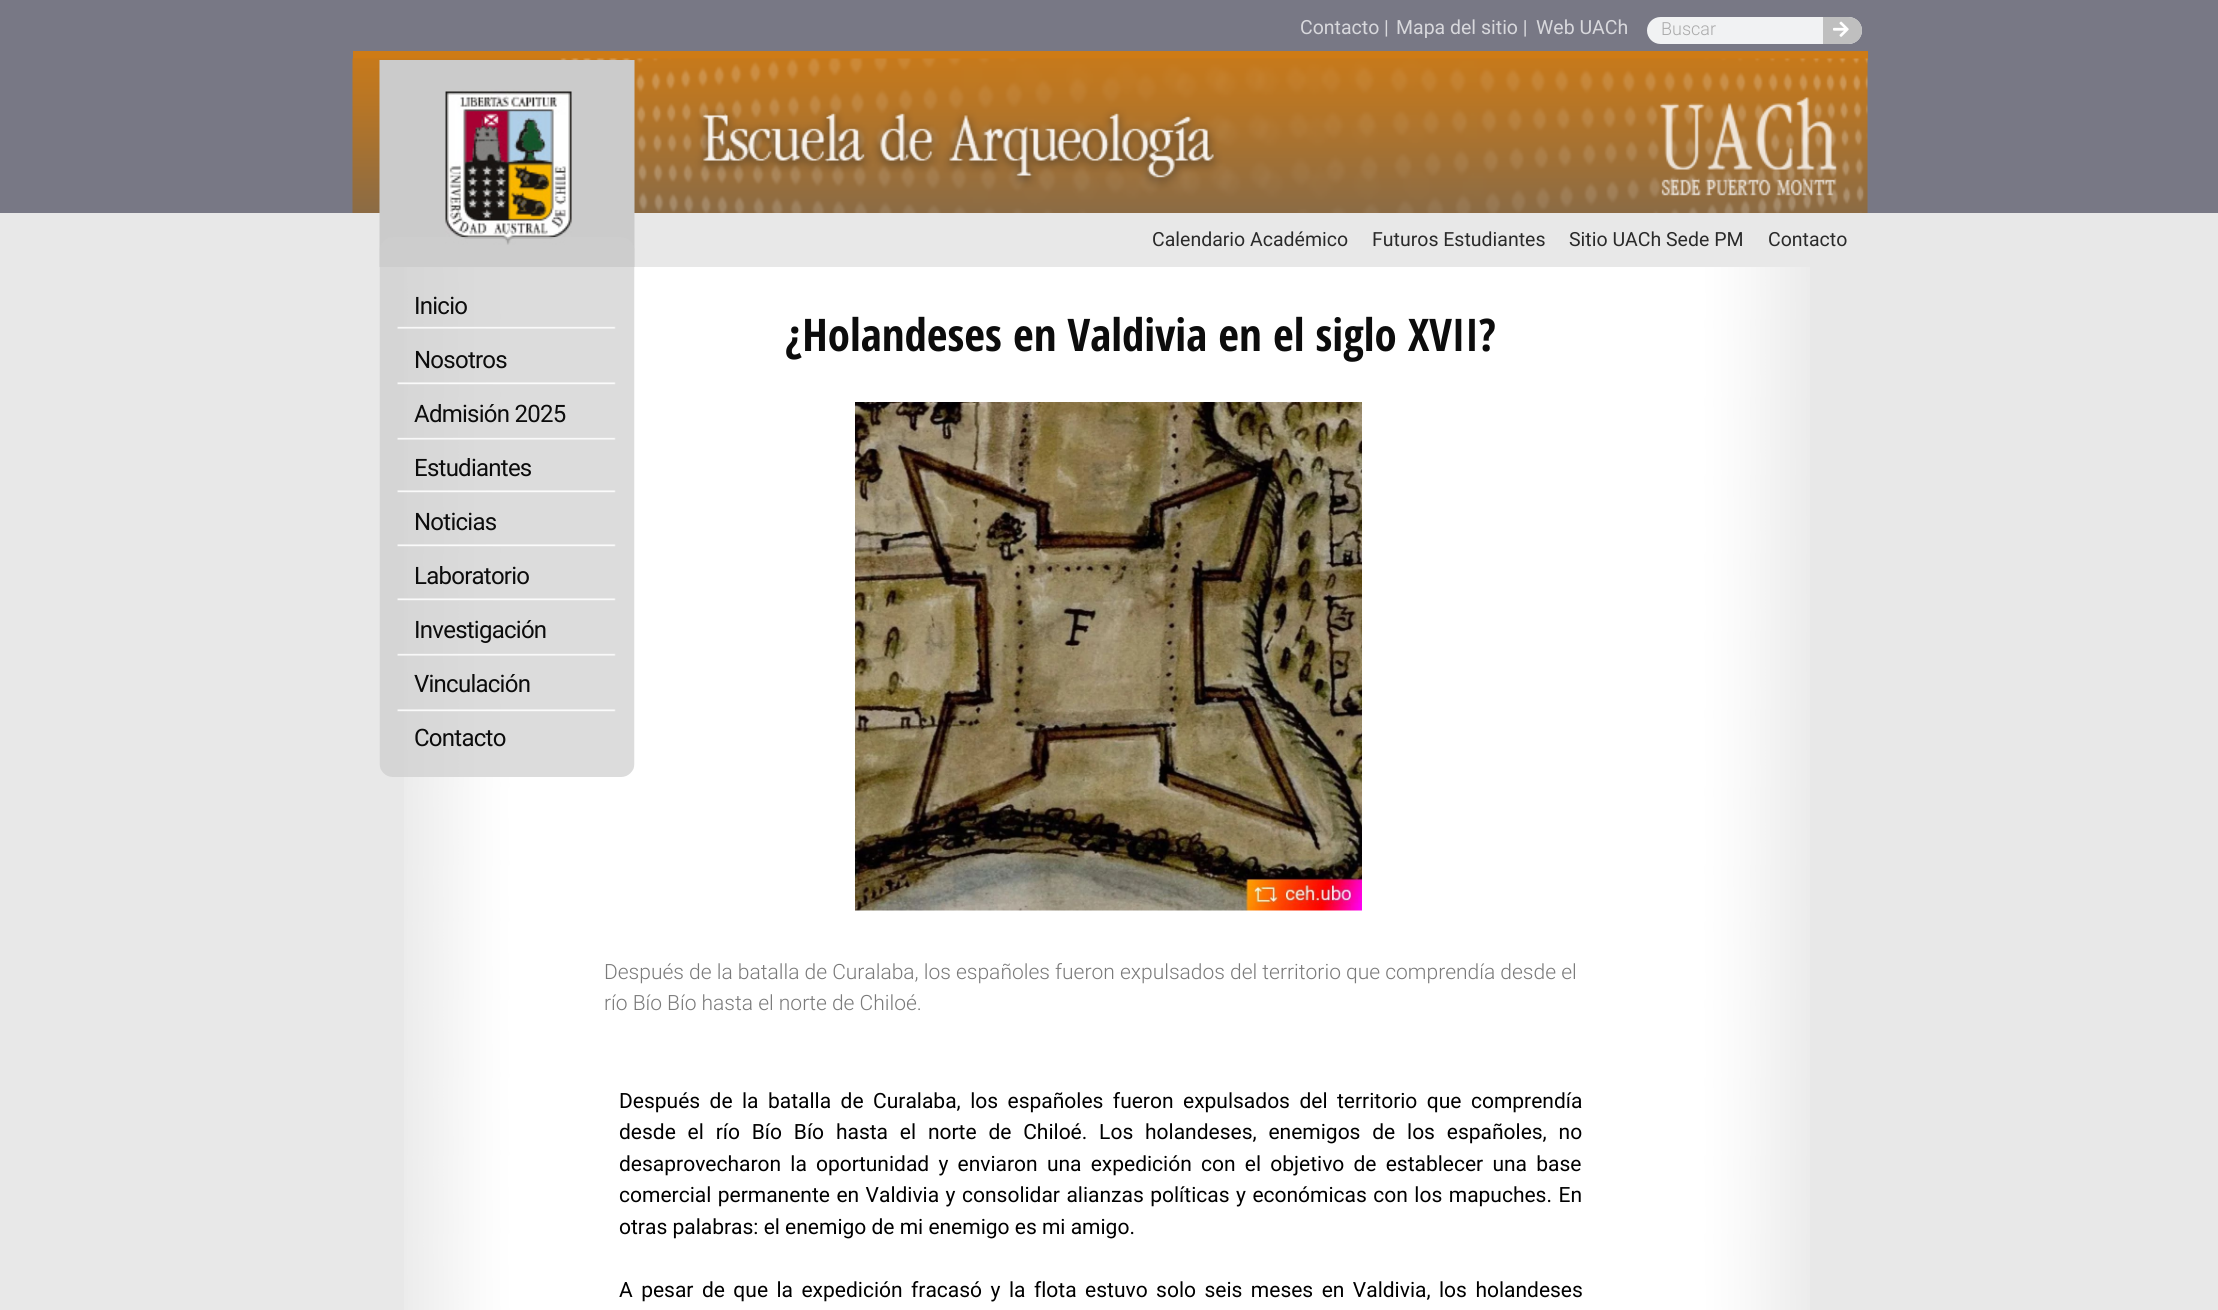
import math
import cairo

surface = cairo.ImageSurface(cairo.FORMAT_RGB24, 2218, 1310)
ctx = cairo.Context(surface)
options = cairo.FontOptions()
options.set_hint_metrics(cairo.HINT_METRICS_OFF)
options.set_hint_style(cairo.HINT_STYLE_NONE)
ctx.set_font_options(options)
ctx.set_miter_limit(4)


def spaced_text(x, y, s, letter, word):
    ctx.move_to(x, y)
    for ch in s:
        ctx.show_text(ch)
        ctx.rel_move_to(letter + word * (ch == ' '), 0)


def round_rect(x, y, w, h, r):
    ctx.new_sub_path()
    for i, (u, v) in enumerate([(x + w - r, y + h - r), (x + r, y + h - r), (x + r, y + r), (x + w - r, y + r)]):
        ctx.arc(u, v, r, i * math.pi / 2, (i + 1) * math.pi / 2)
    ctx.close_path()


def picture(path, x, y, w, h):
    ctx.save()
    ctx.set_source_surface(cairo.ImageSurface.create_from_png(path), x, y)
    ctx.rectangle(x, y, w, h)
    ctx.fill()
    ctx.restore()


ctx.set_source_rgb(0.471, 0.471, 0.522)
ctx.paint()
ctx.select_font_face("Roboto")
ctx.set_font_size(19.5)
ctx.set_source_rgb(0.847, 0.847, 0.863)
ctx.move_to(1300, 34)
ctx.show_text("Contacto |")
ctx.move_to(1396, 34)
ctx.show_text("Mapa del sitio |")
ctx.move_to(1536, 34)
ctx.show_text("Web UACh")
ctx.set_source_rgb(0.945, 0.949, 0.953)
round_rect(1647, 17, 215, 27, 13.5)
ctx.fill()
ctx.select_font_face("Roboto Light")
ctx.set_font_size(18)
ctx.set_source_rgb(0.667, 0.667, 0.667)
ctx.move_to(1661, 35)
ctx.show_text("Buscar")
ctx.set_source_rgb(0.749, 0.749, 0.749)
ctx.new_path()
ctx.move_to(1823, 17)
ctx.line_to(1848.5, 17)
ctx.curve_to(1856, 17, 1862, 23, 1862, 30.5)
ctx.curve_to(1862, 38, 1856, 44, 1848.5, 44)
ctx.line_to(1823, 44)
ctx.close_path()
ctx.fill()
picture("img1.png", 1833, 21, 16, 16)
ctx.set_source_rgb(0.808, 0.482, 0.086)
ctx.rectangle(353, 51, 1515, 9)
ctx.fill()
picture("img2.png", 352, 58, 1516, 155)
ctx.set_source_rgb(0.91, 0.91, 0.91)
ctx.rectangle(0, 213, 2218, 1097)
ctx.fill()
picture("img3.png", 379, 60, 256, 207)
ctx.select_font_face("Roboto")
ctx.set_font_size(19.5)
ctx.set_source_rgb(0.165, 0.165, 0.165)
ctx.move_to(1152, 246)
ctx.show_text("Calendario Académico")
ctx.move_to(1372, 246)
ctx.show_text("Futuros Estudiantes")
ctx.move_to(1569, 246)
ctx.show_text("Sitio UACh Sede PM")
ctx.move_to(1768, 246)
ctx.show_text("Contacto")
picture("img4.png", 404, 267, 1406, 651)
picture("img5.png", 379, 237, 256, 540)
ctx.set_font_size(24)
ctx.set_source_rgb(0.047, 0.047, 0.047)
spaced_text(414, 314, "Inicio", -0.75, 0)
spaced_text(414, 368, "Nosotros", -0.75, 0)
spaced_text(414, 422, "Admisión 2025", -0.75, 0)
spaced_text(414, 476, "Estudiantes", -0.75, 0)
spaced_text(414, 530, "Noticias", -0.75, 0)
spaced_text(414, 584, "Laboratorio", -0.75, 0)
spaced_text(414, 638, "Investigación", -0.75, 0)
spaced_text(414, 692, "Vinculación", -0.75, 0)
spaced_text(414, 746, "Contacto", -0.75, 0)
ctx.select_font_face("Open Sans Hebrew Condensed", cairo.FONT_SLANT_NORMAL, cairo.FONT_WEIGHT_BOLD)
ctx.set_font_size(45)
ctx.move_to(785, 351)
ctx.show_text("¿Holandeses en Valdivia en el siglo XVII?")
picture("img6.png", 855, 402, 507, 509)
picture("img7.png", 404, 918, 1406, 392)
ctx.select_font_face("Roboto Light")
ctx.set_font_size(21)
ctx.set_source_rgb(0.478, 0.478, 0.478)
ctx.move_to(604, 979)
ctx.show_text("Después de la batalla de Curalaba, los españoles fueron expulsados del territorio que comprendía desde el")
ctx.move_to(604, 1010)
ctx.show_text("río Bío Bío hasta el norte de Chiloé.")
ctx.select_font_face("Roboto")
ctx.set_source_rgb(0, 0, 0)
spaced_text(619, 1108, "Después de la batalla de Curalaba, los españoles fueron expulsados del territorio que comprendía", 0, 4.25)
spaced_text(619, 1139, "desde el río Bío Bío hasta el norte de Chiloé. Los holandeses, enemigos de los españoles, no", 0, 6.6)
spaced_text(619, 1171, "desaprovecharon la oportunidad y enviaron una expedición con el objetivo de establecer una base", 0, 4)
spaced_text(619, 1202, "comercial permanente en Valdivia y consolidar alianzas políticas y económicas con los mapuches. En", 0, 1.25)
ctx.move_to(619, 1234)
ctx.show_text("otras palabras: el enemigo de mi enemigo es mi amigo.")
spaced_text(619, 1297, "A pesar de que la expedición fracasó y la flota estuvo solo seis meses en Valdivia, los holandeses", 0, 3.25)
surface.write_to_png("page.png")
